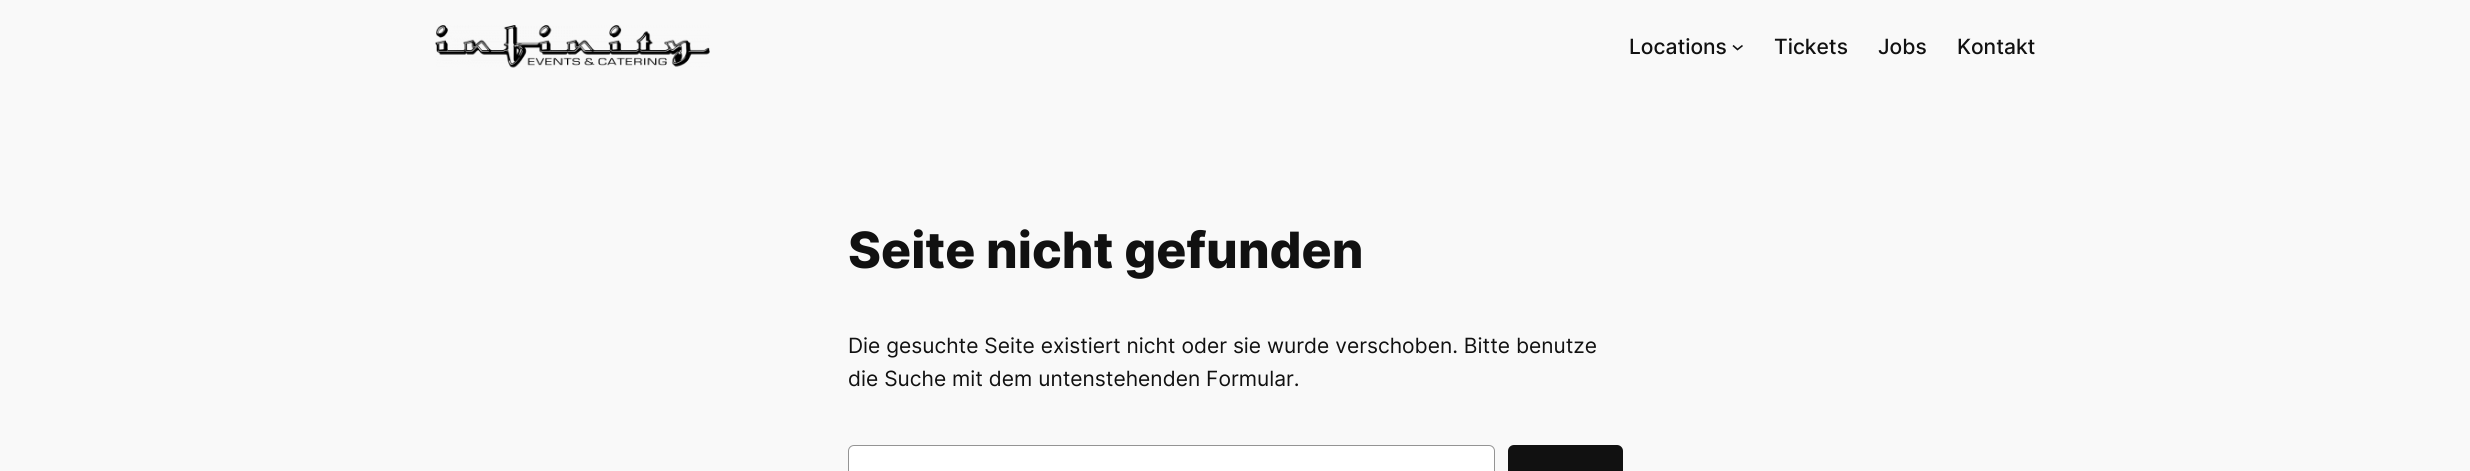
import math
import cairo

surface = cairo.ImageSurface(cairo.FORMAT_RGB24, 2470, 471)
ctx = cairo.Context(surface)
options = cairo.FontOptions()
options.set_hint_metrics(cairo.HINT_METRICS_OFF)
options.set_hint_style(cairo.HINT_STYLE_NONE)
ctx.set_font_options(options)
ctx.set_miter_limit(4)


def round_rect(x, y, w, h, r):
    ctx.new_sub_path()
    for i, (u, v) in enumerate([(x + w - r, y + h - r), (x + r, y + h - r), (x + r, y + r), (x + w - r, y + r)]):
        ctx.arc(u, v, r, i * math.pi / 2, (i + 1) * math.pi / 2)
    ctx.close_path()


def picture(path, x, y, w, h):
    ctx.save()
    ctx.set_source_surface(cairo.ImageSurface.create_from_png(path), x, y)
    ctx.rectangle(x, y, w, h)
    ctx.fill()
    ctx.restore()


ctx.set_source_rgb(0.976, 0.976, 0.976)
ctx.paint()
picture("img1.png", 435, 25, 275, 43)
ctx.select_font_face("Inter Medium")
ctx.set_font_size(21)
ctx.set_source_rgb(0.067, 0.067, 0.067)
ctx.move_to(1629, 54)
ctx.show_text("Locations")
ctx.new_path()
ctx.move_to(1733, 45.5)
ctx.line_to(1737.5, 49.5)
ctx.line_to(1742.5, 45.5)
ctx.set_line_width(1.6)
ctx.stroke()
ctx.move_to(1774, 54)
ctx.show_text("Tickets")
ctx.move_to(1878, 54)
ctx.show_text("Jobs")
ctx.move_to(1957, 54)
ctx.show_text("Kontakt")
ctx.select_font_face("Inter ExtraBold")
ctx.set_font_size(50)
ctx.move_to(848, 268)
ctx.show_text("Seite nicht gefunden")
ctx.select_font_face("Inter")
ctx.set_font_size(21)
ctx.move_to(848, 353)
ctx.show_text("Die gesuchte Seite existiert nicht oder sie wurde verschoben. Bitte benutze")
ctx.move_to(848, 386)
ctx.show_text("die Suche mit dem untenstehenden Formular.")
ctx.set_source_rgb(1, 1, 1)
round_rect(848.5, 445.5, 646, 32, 5.5)
ctx.fill_preserve()
ctx.set_source_rgb(0.58, 0.58, 0.58)
ctx.set_line_width(1)
ctx.stroke()
ctx.set_source_rgb(0.067, 0.067, 0.067)
round_rect(1508, 445, 115, 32, 6)
ctx.fill()
surface.write_to_png("page.png")
